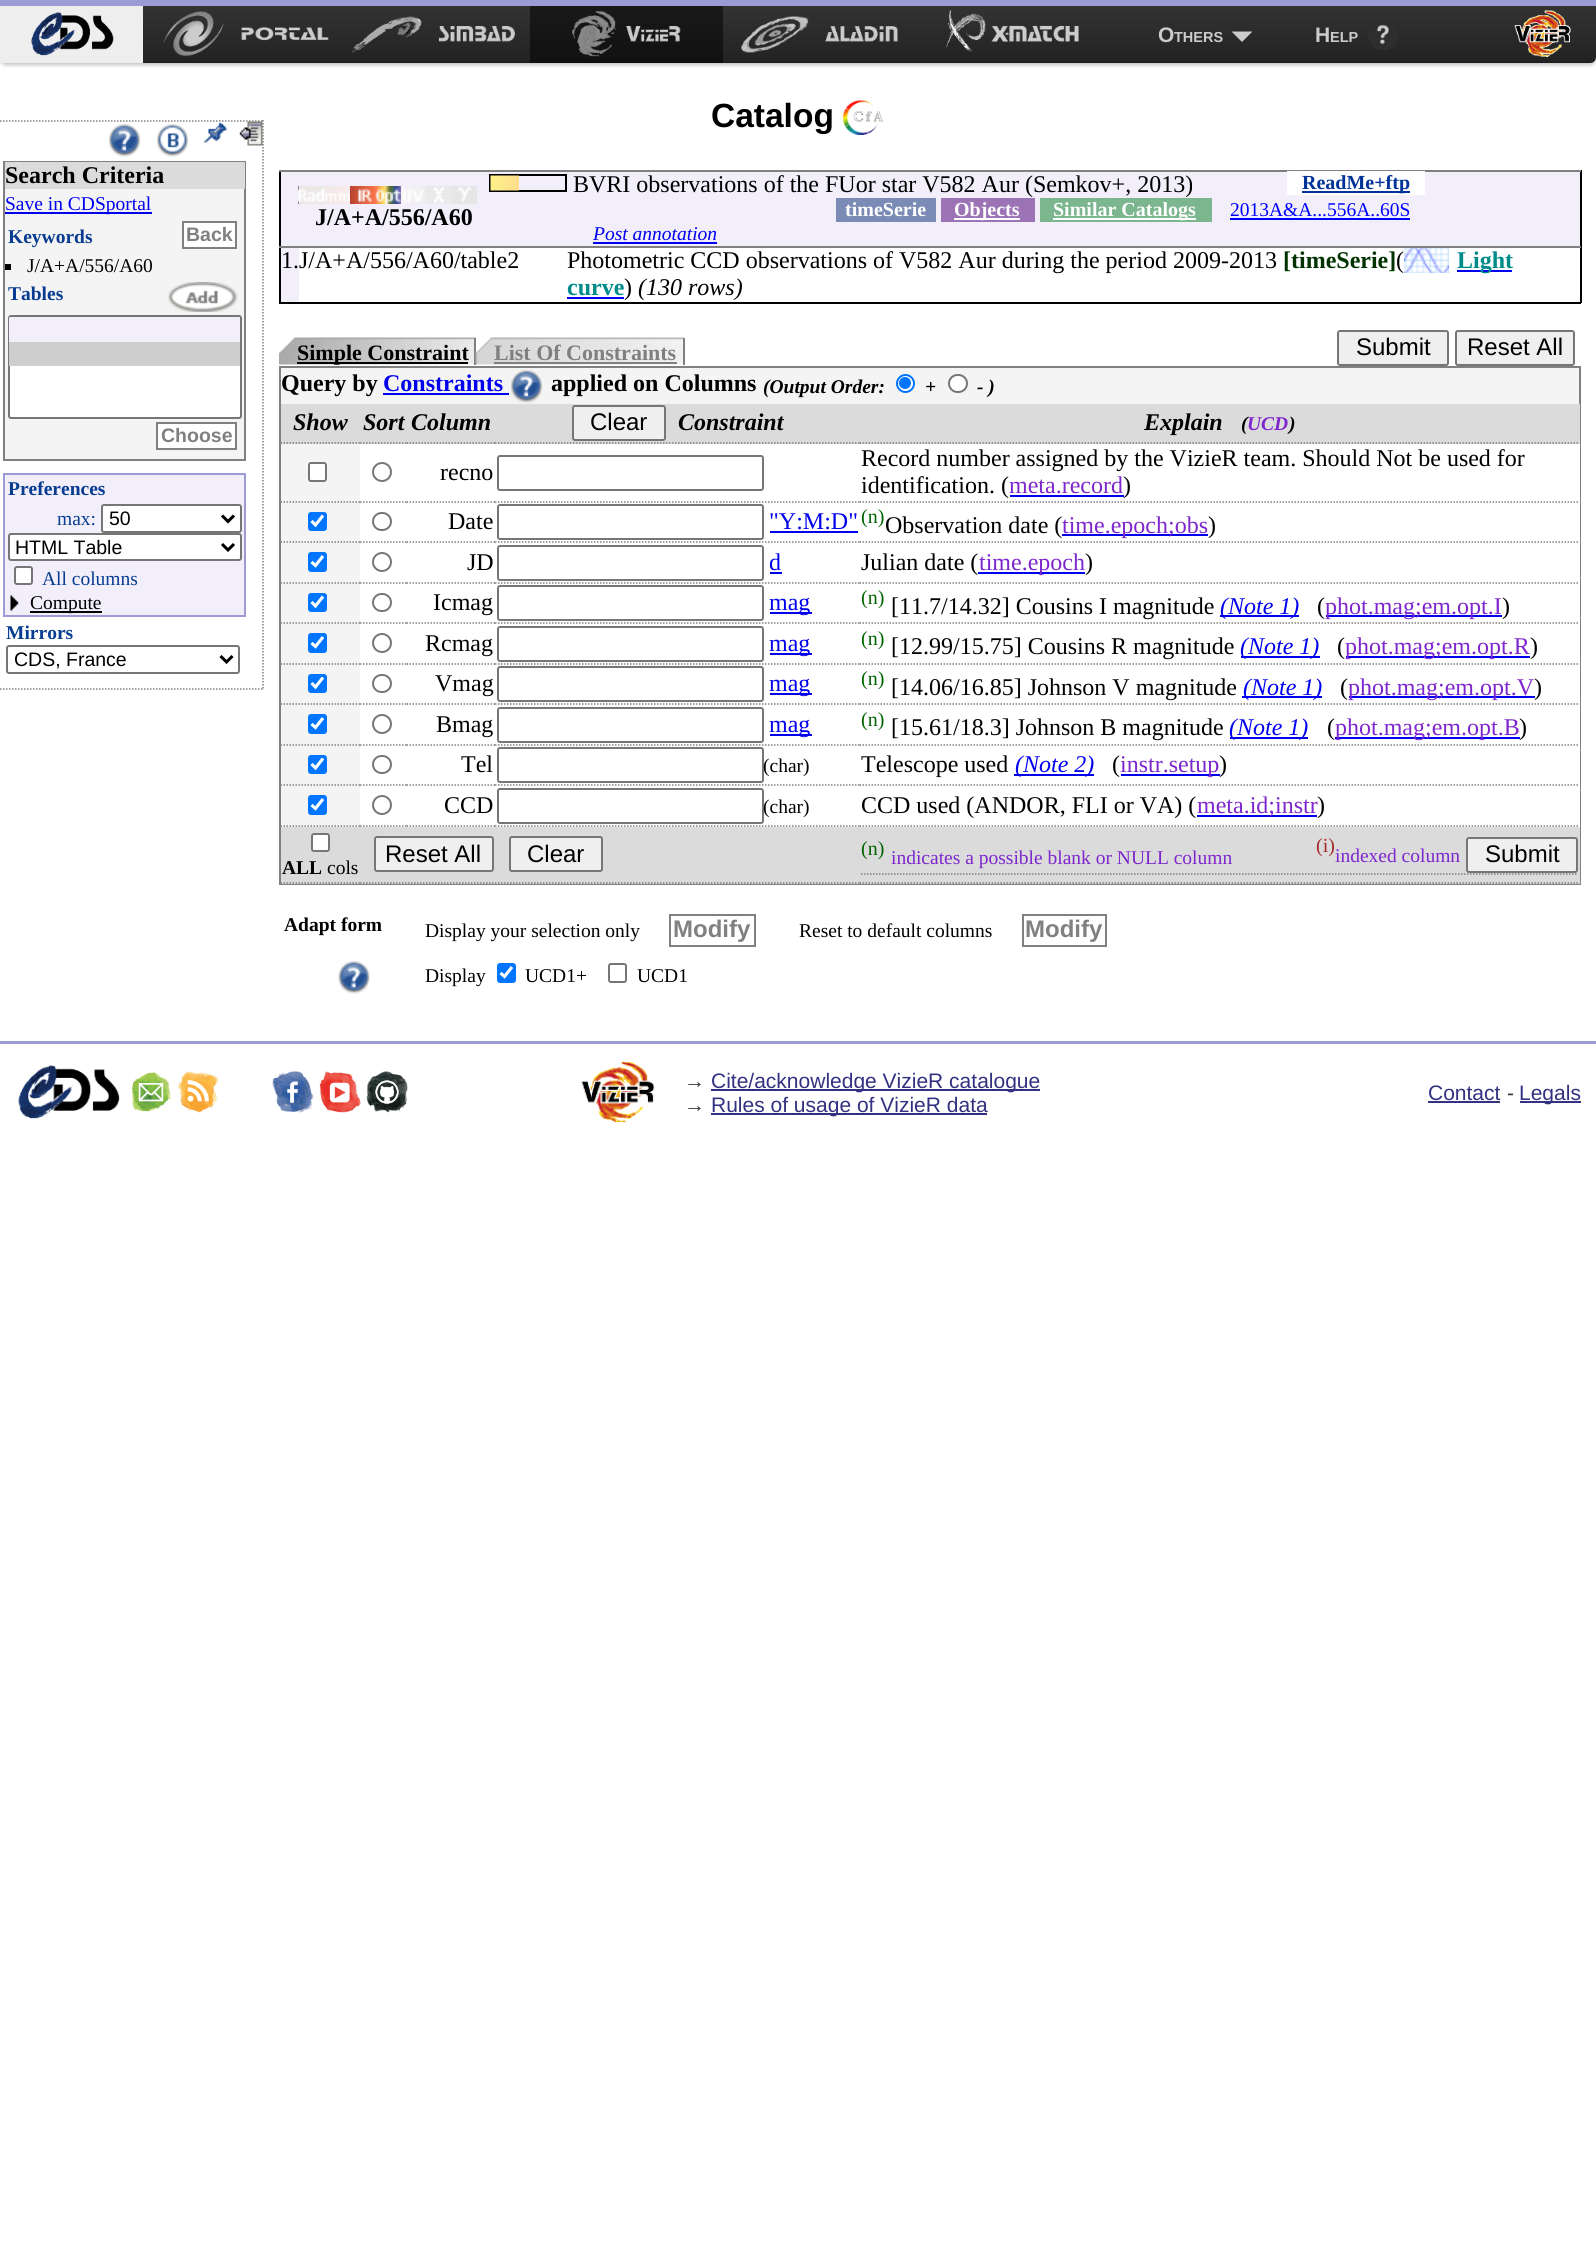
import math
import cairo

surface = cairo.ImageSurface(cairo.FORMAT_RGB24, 1596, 2268)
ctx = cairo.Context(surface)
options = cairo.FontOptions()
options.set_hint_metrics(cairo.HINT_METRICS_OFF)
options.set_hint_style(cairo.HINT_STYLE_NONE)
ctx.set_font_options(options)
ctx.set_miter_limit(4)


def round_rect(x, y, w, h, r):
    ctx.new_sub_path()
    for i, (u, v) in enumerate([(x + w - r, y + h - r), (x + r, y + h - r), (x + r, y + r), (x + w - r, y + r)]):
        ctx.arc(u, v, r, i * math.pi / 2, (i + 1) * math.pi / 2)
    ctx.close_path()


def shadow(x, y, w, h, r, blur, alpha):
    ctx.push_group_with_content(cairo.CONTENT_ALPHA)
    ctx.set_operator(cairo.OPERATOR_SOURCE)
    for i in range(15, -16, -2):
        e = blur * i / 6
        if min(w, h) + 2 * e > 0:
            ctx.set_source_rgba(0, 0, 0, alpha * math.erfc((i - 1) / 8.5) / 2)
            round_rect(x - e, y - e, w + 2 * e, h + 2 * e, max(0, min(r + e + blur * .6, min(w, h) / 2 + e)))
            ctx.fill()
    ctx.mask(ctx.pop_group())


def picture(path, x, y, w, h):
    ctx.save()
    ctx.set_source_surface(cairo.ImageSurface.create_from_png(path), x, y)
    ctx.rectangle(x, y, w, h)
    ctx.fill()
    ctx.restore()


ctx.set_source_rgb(1, 1, 1)
ctx.paint()
ctx.set_source_rgb(0, 0, 0)
shadow(0, 2, 1596, 63, 6, 2, 0.25)
gradient = cairo.LinearGradient(798, 6, 798, 63)
gradient.add_color_stop_rgba(0, 0.2, 0.2, 0.2, 1)
gradient.add_color_stop_rgba(1, 0.133, 0.133, 0.133, 1)
ctx.set_source(gradient)
ctx.new_path()
ctx.move_to(0, 6)
ctx.line_to(1596, 6)
ctx.line_to(1596, 57)
ctx.curve_to(1596, 60.5, 1593.5, 63, 1590, 63)
ctx.line_to(6, 63)
ctx.curve_to(2.5, 63, 0, 60.5, 0, 57)
ctx.close_path()
ctx.fill()
ctx.set_source_rgba(0, 0, 0, 0.1)
ctx.new_path()
ctx.move_to(0, 55)
ctx.curve_to(0, 59, 1, 63, 6, 63)
ctx.line_to(1590, 63)
ctx.curve_to(1595, 63, 1596, 59, 1596, 55)
ctx.curve_to(1596, 59, 1593, 62, 1590, 62)
ctx.line_to(6, 62)
ctx.curve_to(3, 62, 0, 59, 0, 55)
ctx.close_path()
ctx.fill()
ctx.set_source_rgb(0.612, 0.608, 0.835)
ctx.rectangle(0, 0, 1596, 6)
ctx.fill()
ctx.set_source_rgb(0.933, 0.933, 0.933)
ctx.rectangle(0, 6, 143, 57)
ctx.fill()
picture("img1.png", 31, 12, 83, 44)
picture("img2.png", 163, 11, 61, 46)
picture("img3.png", 241, 26, 88, 15)
picture("img4.png", 351, 16, 71, 37)
picture("img5.png", 438, 26, 77, 16)
ctx.set_source_rgba(0, 0, 0, 0.5)
ctx.rectangle(530, 6, 193, 57)
ctx.fill()
picture("img6.png", 572, 10, 44, 47)
picture("img7.png", 626, 25, 55, 17)
picture("img8.png", 740, 16, 69, 37)
picture("img9.png", 825, 26, 73, 16)
picture("img10.png", 946, 10, 40, 42)
picture("img11.png", 991, 25, 88, 17)
ctx.select_font_face("Liberation Sans", cairo.FONT_SLANT_NORMAL, cairo.FONT_WEIGHT_BOLD)
ctx.set_font_size(21)
ctx.set_source_rgb(0.8, 0.8, 0.8)
ctx.move_to(1158, 42)
ctx.show_text("O")
ctx.set_font_size(14.5)
ctx.move_to(1174, 42)
ctx.show_text("THERS")
ctx.new_path()
ctx.move_to(1231.5, 31.5)
ctx.line_to(1252.5, 31.5)
ctx.line_to(1242, 42)
ctx.close_path()
ctx.fill()
ctx.set_font_size(21)
ctx.move_to(1315, 42)
ctx.show_text("H")
ctx.set_font_size(14.5)
ctx.move_to(1330, 42)
ctx.show_text("ELP")
picture("img12.png", 1368, 24, 30, 26)
picture("img13.png", 1514, 9, 57, 48)
ctx.set_font_size(33.5)
ctx.set_source_rgb(0, 0, 0)
ctx.move_to(711, 127)
ctx.show_text("Catalog")
picture("img14.png", 843, 100, 41, 35)
ctx.new_path()
ctx.move_to(0, 121)
ctx.line_to(264, 121)
ctx.set_source_rgb(0.502, 0.502, 0.502)
ctx.set_line_width(1.5)
ctx.set_dash([1.5, 1.5])
ctx.stroke()
ctx.new_path()
ctx.move_to(263, 120)
ctx.line_to(263, 690)
ctx.stroke()
ctx.new_path()
ctx.move_to(0, 689)
ctx.line_to(264, 689)
ctx.stroke()
picture("img15.png", 109, 124, 32, 33)
picture("img16.png", 157, 124, 32, 33)
picture("img17.png", 203, 122, 24, 21)
picture("img18.png", 239, 121, 24, 25)
ctx.set_source_rgb(0.957, 0.957, 0.957)
ctx.rectangle(5, 189, 239, 270)
ctx.fill()
ctx.rectangle(4, 162, 241, 298)
ctx.set_source_rgb(0.502, 0.502, 0.502)
ctx.set_line_width(2)
ctx.set_dash([])
ctx.stroke()
ctx.set_source_rgb(0.859, 0.859, 0.859)
ctx.rectangle(5, 162, 240, 27)
ctx.fill()
ctx.select_font_face("Liberation Serif", cairo.FONT_SLANT_NORMAL, cairo.FONT_WEIGHT_BOLD)
ctx.set_font_size(24)
ctx.set_source_rgb(0, 0, 0)
ctx.move_to(5, 183)
ctx.show_text("Search Criteria")
ctx.set_source_rgb(0, 0, 0.933)
ctx.rectangle(5, 212, 147, 2)
ctx.fill()
ctx.select_font_face("Liberation Serif")
ctx.set_font_size(19.5)
ctx.move_to(5, 210)
ctx.show_text("Save in CDSportal")
ctx.select_font_face("Liberation Serif", cairo.FONT_SLANT_NORMAL, cairo.FONT_WEIGHT_BOLD)
ctx.set_source_rgb(0.031, 0.235, 0.569)
ctx.move_to(8, 243)
ctx.show_text("Keywords")
ctx.set_source_rgb(1, 1, 1)
ctx.rectangle(183, 222, 53, 26)
ctx.fill_preserve()
ctx.set_source_rgb(0.502, 0.502, 0.502)
ctx.stroke()
ctx.select_font_face("Liberation Sans", cairo.FONT_SLANT_NORMAL, cairo.FONT_WEIGHT_BOLD)
ctx.move_to(186, 241)
ctx.show_text("Back")
ctx.set_source_rgb(0, 0, 0)
ctx.rectangle(5, 264, 6, 6)
ctx.fill()
ctx.select_font_face("Liberation Serif")
ctx.move_to(27, 272)
ctx.show_text("J/A+A/556/A60")
ctx.select_font_face("Liberation Serif", cairo.FONT_SLANT_NORMAL, cairo.FONT_WEIGHT_BOLD)
ctx.set_source_rgb(0.031, 0.235, 0.569)
ctx.move_to(8, 300)
ctx.show_text("Tables")
picture("img19.png", 167, 282, 71, 30)
ctx.set_source_rgb(1, 1, 1)
round_rect(9, 316, 232, 102, 2)
ctx.fill_preserve()
ctx.set_source_rgb(0.463, 0.463, 0.463)
ctx.stroke()
ctx.set_source_rgb(0.949, 0.937, 0.984)
ctx.new_path()
ctx.move_to(10.5, 317)
ctx.line_to(238.5, 317)
ctx.curve_to(239.5, 317, 240, 317.5, 240, 318.5)
ctx.line_to(240, 342)
ctx.line_to(9, 342)
ctx.line_to(9, 318.5)
ctx.curve_to(9, 317.5, 9.5, 317, 10.5, 317)
ctx.close_path()
ctx.fill()
ctx.set_source_rgb(0.808, 0.808, 0.808)
ctx.rectangle(9, 342, 231, 24)
ctx.fill()
ctx.set_source_rgb(1, 1, 1)
ctx.rectangle(157, 423, 79, 26)
ctx.fill_preserve()
ctx.set_source_rgb(0.502, 0.502, 0.502)
ctx.stroke()
ctx.select_font_face("Liberation Sans", cairo.FONT_SLANT_NORMAL, cairo.FONT_WEIGHT_BOLD)
ctx.move_to(161, 442)
ctx.show_text("Choose")
ctx.set_source_rgb(0.949, 0.937, 0.984)
ctx.rectangle(4, 474, 241, 142)
ctx.fill_preserve()
ctx.set_source_rgb(0.612, 0.608, 0.835)
ctx.stroke()
ctx.select_font_face("Liberation Serif", cairo.FONT_SLANT_NORMAL, cairo.FONT_WEIGHT_BOLD)
ctx.set_source_rgb(0.031, 0.235, 0.569)
ctx.move_to(8, 495)
ctx.show_text("Preferences")
ctx.select_font_face("Liberation Serif")
ctx.move_to(57, 525)
ctx.show_text("max:")
ctx.set_source_rgb(1, 1, 1)
round_rect(102, 505, 139, 27, 2)
ctx.fill_preserve()
ctx.set_source_rgb(0.463, 0.463, 0.463)
ctx.stroke()
ctx.new_path()
ctx.move_to(222, 515.5)
ctx.line_to(228, 521.5)
ctx.line_to(234, 515.5)
ctx.set_source_rgb(0, 0, 0)
ctx.set_line_width(3)
ctx.stroke()
ctx.select_font_face("Liberation Sans")
ctx.move_to(109, 525)
ctx.show_text("50")
ctx.set_source_rgb(1, 1, 1)
round_rect(9, 534, 232, 26, 2)
ctx.fill_preserve()
ctx.set_source_rgb(0.463, 0.463, 0.463)
ctx.set_line_width(2)
ctx.stroke()
ctx.new_path()
ctx.move_to(222, 544)
ctx.line_to(228, 550)
ctx.line_to(234, 544)
ctx.set_source_rgb(0, 0, 0)
ctx.set_line_width(3)
ctx.stroke()
ctx.move_to(15, 554)
ctx.show_text("HTML Table")
ctx.set_source_rgb(1, 1, 1)
round_rect(15, 567, 17, 17, 2)
ctx.fill_preserve()
ctx.set_source_rgb(0.463, 0.463, 0.463)
ctx.set_line_width(2)
ctx.stroke()
ctx.select_font_face("Liberation Serif")
ctx.set_source_rgb(0.031, 0.235, 0.569)
ctx.move_to(42, 585)
ctx.show_text("All columns")
picture("img20.png", 10, 595, 9, 16)
ctx.set_source_rgb(0, 0, 0)
ctx.rectangle(30, 611, 72, 2)
ctx.fill()
ctx.move_to(30, 609)
ctx.show_text("Compute")
ctx.select_font_face("Liberation Serif", cairo.FONT_SLANT_NORMAL, cairo.FONT_WEIGHT_BOLD)
ctx.set_source_rgb(0.031, 0.235, 0.569)
ctx.move_to(6, 639)
ctx.show_text("Mirrors")
round_rect(7, 646, 232, 27, 2)
ctx.set_source_rgb(0.463, 0.463, 0.463)
ctx.stroke()
ctx.new_path()
ctx.move_to(220.5, 656)
ctx.line_to(226.5, 662)
ctx.line_to(232.5, 656)
ctx.set_source_rgb(0, 0, 0)
ctx.set_line_width(3)
ctx.stroke()
ctx.select_font_face("Liberation Sans")
ctx.move_to(14, 666)
ctx.show_text("CDS, France")
ctx.rectangle(1580, 170, 2, 133)
ctx.fill()
ctx.rectangle(279, 302, 1302, 2)
ctx.fill()
ctx.rectangle(279, 170, 2, 133)
ctx.fill()
ctx.set_source_rgb(0.949, 0.937, 0.984)
ctx.rectangle(567, 170, 6, 76)
ctx.fill()
ctx.set_source_rgb(0.502, 0.502, 0.502)
ctx.rectangle(279, 170, 1302, 2)
ctx.fill()
ctx.set_source_rgb(0.949, 0.937, 0.984)
ctx.rectangle(281, 172, 286, 74)
ctx.fill()
picture("img21.png", 298, 186, 179, 18)
ctx.set_source_rgba(1, 1, 1, 0.9)
ctx.rectangle(299, 186, 25, 18)
ctx.fill()
ctx.rectangle(324, 186, 26, 18)
ctx.fill()
ctx.rectangle(401, 186, 25, 18)
ctx.fill()
ctx.rectangle(426, 186, 26, 18)
ctx.fill()
ctx.rectangle(452, 186, 25, 18)
ctx.fill()
ctx.select_font_face("Liberation Serif", cairo.FONT_SLANT_NORMAL, cairo.FONT_WEIGHT_BOLD)
ctx.set_font_size(24)
ctx.set_source_rgb(0, 0, 0)
ctx.move_to(315, 225)
ctx.show_text("J/A+A/556/A60")
ctx.rectangle(490, 175, 76, 16)
ctx.set_line_width(2)
ctx.stroke()
picture("img22.png", 490, 175, 29, 16)
ctx.set_source_rgb(0.949, 0.937, 0.984)
ctx.rectangle(573, 172, 1007, 74)
ctx.fill()
ctx.select_font_face("Liberation Serif")
ctx.set_source_rgb(0, 0, 0)
ctx.move_to(573, 192)
ctx.show_text("BVRI observations of the FUor star V582 Aur (Semkov+, 2013)")
ctx.set_source_rgb(1, 1, 1)
ctx.rectangle(1287, 171, 138, 24)
ctx.fill()
ctx.set_source_rgb(0, 0.2, 0.6)
ctx.rectangle(1302, 191, 108, 2)
ctx.fill()
ctx.select_font_face("Liberation Serif", cairo.FONT_SLANT_NORMAL, cairo.FONT_WEIGHT_BOLD)
ctx.set_font_size(20)
ctx.move_to(1302, 189)
ctx.show_text("ReadMe+ftp")
ctx.set_source_rgb(0.478, 0.545, 0.714)
ctx.rectangle(836, 198, 100, 24)
ctx.fill()
ctx.set_source_rgb(1, 1, 1)
ctx.move_to(845, 216)
ctx.show_text("timeSerie")
ctx.set_source_rgb(0.612, 0.455, 0.714)
ctx.rectangle(941, 198, 94, 24)
ctx.fill()
ctx.set_source_rgb(1, 1, 1)
ctx.rectangle(954, 218, 66, 2)
ctx.fill()
ctx.move_to(954, 216)
ctx.show_text("Objects")
ctx.set_source_rgb(0.486, 0.714, 0.557)
ctx.rectangle(1040, 198, 172, 24)
ctx.fill()
ctx.set_source_rgb(1, 1, 1)
ctx.rectangle(1053, 218, 143, 2)
ctx.fill()
ctx.move_to(1053, 216)
ctx.show_text("Similar Catalogs")
ctx.select_font_face("Liberation Serif")
ctx.set_font_size(19.5)
ctx.set_source_rgb(0, 0, 1)
ctx.move_to(1230, 216)
ctx.show_text("2013A&A...556A..60S")
ctx.rectangle(1230, 218, 180, 2)
ctx.fill()
ctx.select_font_face("Liberation Serif", cairo.FONT_SLANT_ITALIC)
ctx.set_source_rgb(0, 0, 0.933)
ctx.move_to(593, 240)
ctx.show_text("Post annotation")
ctx.rectangle(593, 242, 124, 2)
ctx.fill()
ctx.set_source_rgb(0.949, 0.937, 0.984)
ctx.rectangle(281, 248, 18, 54)
ctx.fill()
ctx.select_font_face("Liberation Serif")
ctx.set_font_size(24)
ctx.set_source_rgb(0, 0, 0)
ctx.move_to(281, 268)
ctx.show_text("1.J/A+A/556/A60/table2")
ctx.set_source_rgb(0.502, 0.502, 0.502)
ctx.rectangle(279, 246, 1302, 2)
ctx.fill()
ctx.set_source_rgb(0, 0, 0)
ctx.move_to(567, 268)
ctx.show_text("Photometric CCD observations of V582 Aur during the period 2009-2013")
ctx.select_font_face("Liberation Serif", cairo.FONT_SLANT_NORMAL, cairo.FONT_WEIGHT_BOLD)
ctx.set_source_rgb(0, 0.2, 0)
ctx.move_to(1283, 268)
ctx.show_text("[timeSerie]")
ctx.select_font_face("Liberation Serif")
ctx.set_source_rgb(0, 0, 0)
ctx.move_to(1396, 268)
ctx.show_text("(")
picture("img23.png", 1404, 248, 45, 25)
ctx.set_source_rgb(0, 0, 0.933)
ctx.rectangle(1457, 270, 55, 2)
ctx.fill()
ctx.select_font_face("Liberation Serif", cairo.FONT_SLANT_NORMAL, cairo.FONT_WEIGHT_BOLD)
ctx.set_source_rgb(0, 0.545, 0.545)
ctx.move_to(1457, 268)
ctx.show_text("Light")
ctx.move_to(567, 295)
ctx.show_text("curve")
ctx.set_source_rgb(0, 0, 0.933)
ctx.rectangle(567, 297, 57, 2)
ctx.fill()
ctx.select_font_face("Liberation Serif")
ctx.set_source_rgb(0, 0, 0)
ctx.move_to(624, 295)
ctx.show_text(")")
ctx.select_font_face("Liberation Serif", cairo.FONT_SLANT_ITALIC)
ctx.move_to(638, 295)
ctx.show_text("(130 rows)")
picture("img24.png", 279, 337, 197, 28)
ctx.set_source_rgb(0.502, 0.502, 0.502)
ctx.rectangle(474, 338, 2, 27)
ctx.fill()
picture("img25.png", 475, 337, 209, 28)
ctx.set_source_rgb(0, 0, 0)
ctx.rectangle(297, 362, 171, 2)
ctx.fill()
ctx.select_font_face("Liberation Serif", cairo.FONT_SLANT_NORMAL, cairo.FONT_WEIGHT_BOLD)
ctx.set_font_size(22)
ctx.move_to(297, 360)
ctx.show_text("Simple Constraint")
ctx.set_source_rgb(0.502, 0.502, 0.502)
ctx.move_to(494, 360)
ctx.show_text("List Of Constraints")
ctx.rectangle(683, 338, 2, 27)
ctx.fill()
ctx.rectangle(494, 362, 183, 2)
ctx.fill()
ctx.set_source_rgb(0.937, 0.937, 0.937)
round_rect(1338, 331, 110, 34, 2)
ctx.fill_preserve()
ctx.set_source_rgb(0.463, 0.463, 0.463)
ctx.stroke()
ctx.select_font_face("Liberation Sans")
ctx.set_font_size(24)
ctx.set_source_rgb(0, 0, 0)
ctx.move_to(1356, 355)
ctx.show_text("Submit")
ctx.set_source_rgb(0.937, 0.937, 0.937)
round_rect(1456, 331, 118, 34, 2)
ctx.fill_preserve()
ctx.set_source_rgb(0.463, 0.463, 0.463)
ctx.stroke()
ctx.set_source_rgb(0, 0, 0)
ctx.move_to(1467, 355)
ctx.show_text("Reset All")
ctx.set_source_rgb(0.957, 0.957, 0.957)
ctx.rectangle(281, 368, 1298, 36)
ctx.fill()
ctx.rectangle(280, 367, 1300, 517)
ctx.set_source_rgb(0.502, 0.502, 0.502)
ctx.stroke()
ctx.select_font_face("Liberation Serif", cairo.FONT_SLANT_NORMAL, cairo.FONT_WEIGHT_BOLD)
ctx.set_source_rgb(0, 0, 0)
ctx.move_to(281, 391)
ctx.show_text("Query by")
ctx.set_source_rgb(0, 0, 0.933)
ctx.move_to(383, 391)
ctx.show_text("Constraints")
ctx.rectangle(383, 393, 126, 2)
ctx.fill()
picture("img26.png", 511, 370, 32, 33)
ctx.set_source_rgb(0, 0, 0)
ctx.move_to(551, 391)
ctx.show_text("applied on Columns")
ctx.select_font_face("Liberation Serif", cairo.FONT_SLANT_ITALIC, cairo.FONT_WEIGHT_BOLD)
ctx.set_font_size(19.5)
ctx.move_to(763, 393)
ctx.show_text("(Output Order:")
ctx.set_source_rgb(1, 1, 1)
ctx.new_path()
ctx.arc(905.5, 383.5, 8.5, 0, 2 * math.pi)
ctx.fill_preserve()
ctx.set_source_rgb(0, 0.459, 1)
ctx.stroke()
ctx.arc(905, 383, 6, 0, 2 * math.pi)
ctx.fill()
ctx.set_source_rgb(0, 0, 0)
ctx.move_to(925, 393)
ctx.show_text("+")
ctx.set_source_rgb(1, 1, 1)
round_rect(949, 375, 18, 17, 8.5)
ctx.fill_preserve()
ctx.set_source_rgb(0.463, 0.463, 0.463)
ctx.stroke()
ctx.set_source_rgb(0, 0, 0)
ctx.move_to(977, 393)
ctx.show_text("- )")
ctx.set_source_rgb(1, 1, 1)
ctx.rectangle(1579, 444, 1, 383)
ctx.fill()
ctx.set_source_rgb(0.859, 0.859, 0.859)
ctx.rectangle(281, 404, 1299, 40)
ctx.fill()
ctx.new_path()
ctx.move_to(280.5, 443)
ctx.line_to(360, 443)
ctx.set_source_rgb(0.502, 0.502, 0.502)
ctx.set_line_width(1.5)
ctx.set_dash([1.5, 1.5])
ctx.stroke()
ctx.set_font_size(24)
ctx.set_source_rgb(0, 0, 0)
ctx.move_to(293, 430)
ctx.show_text("Show")
ctx.new_path()
ctx.move_to(360, 443)
ctx.line_to(406.5, 443)
ctx.set_source_rgb(0.502, 0.502, 0.502)
ctx.stroke()
ctx.set_source_rgb(0, 0, 0)
ctx.move_to(363, 430)
ctx.show_text("Sort")
ctx.new_path()
ctx.move_to(406.5, 443)
ctx.line_to(495, 443)
ctx.set_source_rgb(0.502, 0.502, 0.502)
ctx.stroke()
ctx.set_source_rgb(0, 0, 0)
ctx.move_to(411, 430)
ctx.show_text("Column")
ctx.new_path()
ctx.move_to(495, 443)
ctx.line_to(859.5, 443)
ctx.set_source_rgb(0.502, 0.502, 0.502)
ctx.stroke()
ctx.set_source_rgb(0.937, 0.937, 0.937)
round_rect(573, 406, 92, 34, 2)
ctx.fill_preserve()
ctx.set_source_rgb(0.463, 0.463, 0.463)
ctx.set_line_width(2)
ctx.set_dash([])
ctx.stroke()
ctx.select_font_face("Liberation Sans")
ctx.set_source_rgb(0, 0, 0)
ctx.move_to(590, 430)
ctx.show_text("Clear")
ctx.select_font_face("Liberation Serif", cairo.FONT_SLANT_ITALIC, cairo.FONT_WEIGHT_BOLD)
ctx.move_to(678, 430)
ctx.show_text("Constraint")
ctx.new_path()
ctx.move_to(859.5, 443)
ctx.line_to(1579.5, 443)
ctx.set_source_rgb(0.502, 0.502, 0.502)
ctx.set_line_width(1.5)
ctx.set_dash([1.5, 1.5])
ctx.stroke()
ctx.set_source_rgb(0, 0, 0)
ctx.move_to(1144, 430)
ctx.show_text("Explain")
ctx.set_font_size(19.5)
ctx.move_to(1241, 430)
ctx.show_text("(")
ctx.set_source_rgb(0.49, 0.149, 0.804)
ctx.move_to(1247, 430)
ctx.show_text("UCD")
ctx.set_source_rgb(0, 0, 0)
ctx.move_to(1289, 430)
ctx.show_text(")")
ctx.set_source_rgb(0.957, 0.957, 0.957)
ctx.rectangle(281, 444, 79, 383)
ctx.fill()
ctx.new_path()
ctx.move_to(280.5, 502)
ctx.line_to(360, 502)
ctx.set_source_rgb(0.502, 0.502, 0.502)
ctx.stroke()
ctx.set_source_rgb(1, 1, 1)
round_rect(309, 463, 17, 18, 2)
ctx.fill_preserve()
ctx.set_source_rgb(0.463, 0.463, 0.463)
ctx.set_line_width(2)
ctx.set_dash([])
ctx.stroke()
ctx.new_path()
ctx.move_to(360, 502)
ctx.line_to(406.5, 502)
ctx.set_source_rgb(0.502, 0.502, 0.502)
ctx.set_line_width(1.5)
ctx.set_dash([1.5, 1.5])
ctx.stroke()
ctx.arc(382, 472, 9, 0, 2 * math.pi)
ctx.set_source_rgb(0.463, 0.463, 0.463)
ctx.set_line_width(2)
ctx.set_dash([])
ctx.stroke()
ctx.new_path()
ctx.move_to(406.5, 502)
ctx.line_to(495, 502)
ctx.set_source_rgb(0.502, 0.502, 0.502)
ctx.set_line_width(1.5)
ctx.set_dash([1.5, 1.5])
ctx.stroke()
ctx.select_font_face("Liberation Serif")
ctx.set_font_size(24)
ctx.set_source_rgb(0, 0, 0)
ctx.move_to(440, 480)
ctx.show_text("recno")
ctx.new_path()
ctx.move_to(495, 502)
ctx.line_to(859.5, 502)
ctx.set_source_rgb(0.502, 0.502, 0.502)
ctx.stroke()
round_rect(498, 456, 265, 34, 2)
ctx.set_source_rgb(0.463, 0.463, 0.463)
ctx.set_line_width(2)
ctx.set_dash([])
ctx.stroke()
ctx.new_path()
ctx.move_to(859.5, 502)
ctx.line_to(1579.5, 502)
ctx.set_source_rgb(0.502, 0.502, 0.502)
ctx.set_line_width(1.5)
ctx.set_dash([1.5, 1.5])
ctx.stroke()
ctx.set_source_rgb(0, 0, 0)
ctx.move_to(861, 466)
ctx.show_text("Record number assigned by the VizieR team. Should Not be used for")
ctx.move_to(861, 493)
ctx.show_text("identification. (")
ctx.set_source_rgb(0.49, 0.149, 0.804)
ctx.move_to(1009, 493)
ctx.show_text("meta.record")
ctx.set_source_rgb(0, 0, 0)
ctx.move_to(1123, 493)
ctx.show_text(")")
ctx.set_source_rgb(0, 0, 0.933)
ctx.rectangle(1010, 495, 114, 2)
ctx.fill()
ctx.new_path()
ctx.move_to(280.5, 542)
ctx.line_to(360, 542)
ctx.set_source_rgb(0.502, 0.502, 0.502)
ctx.stroke()
ctx.set_source_rgb(0, 0.459, 1)
round_rect(308, 512, 19, 19, 3)
ctx.fill()
ctx.new_path()
ctx.move_to(311.5, 521)
ctx.line_to(315.5, 525)
ctx.line_to(323, 515.5)
ctx.set_source_rgb(1, 1, 1)
ctx.set_line_width(3.1)
ctx.set_dash([])
ctx.stroke()
ctx.new_path()
ctx.move_to(360, 542)
ctx.line_to(406.5, 542)
ctx.set_source_rgb(0.502, 0.502, 0.502)
ctx.set_line_width(1.5)
ctx.set_dash([1.5, 1.5])
ctx.stroke()
round_rect(373, 513, 18, 17, 8.5)
ctx.set_source_rgb(0.463, 0.463, 0.463)
ctx.set_line_width(2)
ctx.set_dash([])
ctx.stroke()
ctx.new_path()
ctx.move_to(406.5, 542)
ctx.line_to(495, 542)
ctx.set_source_rgb(0.502, 0.502, 0.502)
ctx.set_line_width(1.5)
ctx.set_dash([1.5, 1.5])
ctx.stroke()
ctx.set_source_rgb(0, 0, 0)
ctx.move_to(448, 529)
ctx.show_text("Date")
ctx.new_path()
ctx.move_to(495, 542)
ctx.line_to(859.5, 542)
ctx.set_source_rgb(0.502, 0.502, 0.502)
ctx.stroke()
round_rect(498, 505, 265, 34, 2)
ctx.set_source_rgb(0.463, 0.463, 0.463)
ctx.set_line_width(2)
ctx.set_dash([])
ctx.stroke()
ctx.set_source_rgb(0, 0, 0.933)
ctx.move_to(769, 529)
ctx.show_text("\"Y:M:D\"")
ctx.rectangle(770, 531, 88, 2)
ctx.fill()
ctx.new_path()
ctx.move_to(859.5, 542)
ctx.line_to(1579.5, 542)
ctx.set_source_rgb(0.502, 0.502, 0.502)
ctx.set_line_width(1.5)
ctx.set_dash([1.5, 1.5])
ctx.stroke()
ctx.set_font_size(20)
ctx.set_source_rgb(0, 0.392, 0)
ctx.move_to(861, 523)
ctx.show_text("(n)")
ctx.set_font_size(24)
ctx.set_source_rgb(0, 0, 0)
ctx.move_to(885, 533)
ctx.show_text("Observation date (")
ctx.set_source_rgb(0, 0, 0.933)
ctx.rectangle(1062, 534, 146, 2)
ctx.fill()
ctx.set_source_rgb(0.49, 0.149, 0.804)
ctx.move_to(1062, 533)
ctx.show_text("time.epoch;obs")
ctx.set_source_rgb(0, 0, 0)
ctx.move_to(1208, 533)
ctx.show_text(")")
ctx.new_path()
ctx.move_to(280.5, 583)
ctx.line_to(360, 583)
ctx.set_source_rgb(0.502, 0.502, 0.502)
ctx.stroke()
ctx.set_source_rgb(0, 0.459, 1)
round_rect(308, 552, 19, 20, 3)
ctx.fill()
ctx.new_path()
ctx.move_to(311.5, 562)
ctx.line_to(315.5, 565.5)
ctx.line_to(323, 556)
ctx.set_source_rgb(1, 1, 1)
ctx.set_line_width(3.1)
ctx.set_dash([])
ctx.stroke()
ctx.new_path()
ctx.move_to(360, 583)
ctx.line_to(406.5, 583)
ctx.set_source_rgb(0.502, 0.502, 0.502)
ctx.set_line_width(1.5)
ctx.set_dash([1.5, 1.5])
ctx.stroke()
ctx.arc(382, 562, 9, 0, 2 * math.pi)
ctx.set_source_rgb(0.463, 0.463, 0.463)
ctx.set_line_width(2)
ctx.set_dash([])
ctx.stroke()
ctx.new_path()
ctx.move_to(406.5, 583)
ctx.line_to(495, 583)
ctx.set_source_rgb(0.502, 0.502, 0.502)
ctx.set_line_width(1.5)
ctx.set_dash([1.5, 1.5])
ctx.stroke()
ctx.set_source_rgb(0, 0, 0)
ctx.move_to(467, 570)
ctx.show_text("JD")
ctx.new_path()
ctx.move_to(495, 583)
ctx.line_to(859.5, 583)
ctx.set_source_rgb(0.502, 0.502, 0.502)
ctx.stroke()
round_rect(498, 546, 265, 34, 2)
ctx.set_source_rgb(0.463, 0.463, 0.463)
ctx.set_line_width(2)
ctx.set_dash([])
ctx.stroke()
ctx.set_source_rgb(0, 0, 0.933)
ctx.move_to(769, 570)
ctx.show_text("d")
ctx.rectangle(770, 572, 12, 2)
ctx.fill()
ctx.new_path()
ctx.move_to(859.5, 583)
ctx.line_to(1579.5, 583)
ctx.set_source_rgb(0.502, 0.502, 0.502)
ctx.set_line_width(1.5)
ctx.set_dash([1.5, 1.5])
ctx.stroke()
ctx.set_source_rgb(0, 0, 0)
ctx.move_to(861, 570)
ctx.show_text("Julian date (")
ctx.set_source_rgb(0, 0, 0.933)
ctx.rectangle(978, 572, 107, 2)
ctx.fill()
ctx.set_source_rgb(0.49, 0.149, 0.804)
ctx.move_to(979, 570)
ctx.show_text("time.epoch")
ctx.set_source_rgb(0, 0, 0)
ctx.move_to(1085, 570)
ctx.show_text(")")
ctx.new_path()
ctx.move_to(280.5, 623)
ctx.line_to(360, 623)
ctx.set_source_rgb(0.502, 0.502, 0.502)
ctx.stroke()
ctx.set_source_rgb(0, 0.459, 1)
round_rect(308, 593, 19, 19, 3)
ctx.fill()
ctx.new_path()
ctx.move_to(311.5, 602)
ctx.line_to(315.5, 606)
ctx.line_to(323, 596.5)
ctx.set_source_rgb(1, 1, 1)
ctx.set_line_width(3.1)
ctx.set_dash([])
ctx.stroke()
ctx.new_path()
ctx.move_to(360, 623)
ctx.line_to(406.5, 623)
ctx.set_source_rgb(0.502, 0.502, 0.502)
ctx.set_line_width(1.5)
ctx.set_dash([1.5, 1.5])
ctx.stroke()
round_rect(373, 594, 18, 17, 8.5)
ctx.set_source_rgb(0.463, 0.463, 0.463)
ctx.set_line_width(2)
ctx.set_dash([])
ctx.stroke()
ctx.new_path()
ctx.move_to(406.5, 623)
ctx.line_to(495, 623)
ctx.set_source_rgb(0.502, 0.502, 0.502)
ctx.set_line_width(1.5)
ctx.set_dash([1.5, 1.5])
ctx.stroke()
ctx.set_source_rgb(0, 0, 0)
ctx.move_to(433, 610)
ctx.show_text("Icmag")
ctx.new_path()
ctx.move_to(495, 623)
ctx.line_to(859.5, 623)
ctx.set_source_rgb(0.502, 0.502, 0.502)
ctx.stroke()
round_rect(498, 586, 265, 34, 2)
ctx.set_source_rgb(0.463, 0.463, 0.463)
ctx.set_line_width(2)
ctx.set_dash([])
ctx.stroke()
ctx.set_source_rgb(0, 0, 0.933)
ctx.rectangle(770, 612, 42, 2)
ctx.fill()
ctx.move_to(769, 610)
ctx.show_text("mag")
ctx.new_path()
ctx.move_to(859.5, 623)
ctx.line_to(1579.5, 623)
ctx.set_source_rgb(0.502, 0.502, 0.502)
ctx.set_line_width(1.5)
ctx.set_dash([1.5, 1.5])
ctx.stroke()
ctx.set_font_size(20)
ctx.set_source_rgb(0, 0.392, 0)
ctx.move_to(861, 604)
ctx.show_text("(n)")
ctx.set_font_size(24)
ctx.set_source_rgb(0, 0, 0)
ctx.move_to(891, 614)
ctx.show_text("[11.7/14.32] Cousins I magnitude")
ctx.set_source_rgb(0, 0, 0.933)
ctx.rectangle(1220, 615, 79, 2)
ctx.fill()
ctx.select_font_face("Liberation Serif", cairo.FONT_SLANT_ITALIC)
ctx.move_to(1220, 614)
ctx.show_text("(Note 1)")
ctx.select_font_face("Liberation Serif")
ctx.set_source_rgb(0, 0, 0)
ctx.move_to(1317, 614)
ctx.show_text("(")
ctx.set_source_rgb(0, 0, 0.933)
ctx.rectangle(1326, 615, 176, 2)
ctx.fill()
ctx.set_source_rgb(0.49, 0.149, 0.804)
ctx.move_to(1325, 614)
ctx.show_text("phot.mag;em.opt.I")
ctx.set_source_rgb(0, 0, 0)
ctx.move_to(1502, 614)
ctx.show_text(")")
ctx.new_path()
ctx.move_to(280.5, 664)
ctx.line_to(360, 664)
ctx.set_source_rgb(0.502, 0.502, 0.502)
ctx.stroke()
ctx.set_source_rgb(0, 0.459, 1)
round_rect(308, 633, 19, 20, 3)
ctx.fill()
ctx.new_path()
ctx.move_to(311.5, 643)
ctx.line_to(315.5, 646.5)
ctx.line_to(323, 637)
ctx.set_source_rgb(1, 1, 1)
ctx.set_line_width(3.1)
ctx.set_dash([])
ctx.stroke()
ctx.new_path()
ctx.move_to(360, 664)
ctx.line_to(406.5, 664)
ctx.set_source_rgb(0.502, 0.502, 0.502)
ctx.set_line_width(1.5)
ctx.set_dash([1.5, 1.5])
ctx.stroke()
ctx.arc(382, 643, 9, 0, 2 * math.pi)
ctx.set_source_rgb(0.463, 0.463, 0.463)
ctx.set_line_width(2)
ctx.set_dash([])
ctx.stroke()
ctx.new_path()
ctx.move_to(406.5, 664)
ctx.line_to(495, 664)
ctx.set_source_rgb(0.502, 0.502, 0.502)
ctx.set_line_width(1.5)
ctx.set_dash([1.5, 1.5])
ctx.stroke()
ctx.set_source_rgb(0, 0, 0)
ctx.move_to(425, 651)
ctx.show_text("Rcmag")
ctx.new_path()
ctx.move_to(495, 664)
ctx.line_to(859.5, 664)
ctx.set_source_rgb(0.502, 0.502, 0.502)
ctx.stroke()
round_rect(498, 627, 265, 34, 2)
ctx.set_source_rgb(0.463, 0.463, 0.463)
ctx.set_line_width(2)
ctx.set_dash([])
ctx.stroke()
ctx.set_source_rgb(0, 0, 0.933)
ctx.rectangle(770, 653, 42, 2)
ctx.fill()
ctx.move_to(769, 651)
ctx.show_text("mag")
ctx.new_path()
ctx.move_to(859.5, 664)
ctx.line_to(1579.5, 664)
ctx.set_source_rgb(0.502, 0.502, 0.502)
ctx.set_line_width(1.5)
ctx.set_dash([1.5, 1.5])
ctx.stroke()
ctx.set_font_size(20)
ctx.set_source_rgb(0, 0.392, 0)
ctx.move_to(861, 645)
ctx.show_text("(n)")
ctx.set_font_size(24)
ctx.set_source_rgb(0, 0, 0)
ctx.move_to(891, 654)
ctx.show_text("[12.99/15.75] Cousins R magnitude")
ctx.set_source_rgb(0, 0, 0.933)
ctx.rectangle(1241, 656, 79, 2)
ctx.fill()
ctx.select_font_face("Liberation Serif", cairo.FONT_SLANT_ITALIC)
ctx.move_to(1240, 654)
ctx.show_text("(Note 1)")
ctx.select_font_face("Liberation Serif")
ctx.set_source_rgb(0, 0, 0)
ctx.move_to(1337, 654)
ctx.show_text("(")
ctx.set_source_rgb(0, 0, 0.933)
ctx.rectangle(1346, 656, 184, 2)
ctx.fill()
ctx.set_source_rgb(0.49, 0.149, 0.804)
ctx.move_to(1345, 654)
ctx.show_text("phot.mag;em.opt.R")
ctx.set_source_rgb(0, 0, 0)
ctx.move_to(1530, 654)
ctx.show_text(")")
ctx.new_path()
ctx.move_to(280.5, 704)
ctx.line_to(360, 704)
ctx.set_source_rgb(0.502, 0.502, 0.502)
ctx.stroke()
ctx.set_source_rgb(0, 0.459, 1)
round_rect(308, 674, 19, 19, 3)
ctx.fill()
ctx.new_path()
ctx.move_to(311.5, 683)
ctx.line_to(315.5, 687)
ctx.line_to(323, 677.5)
ctx.set_source_rgb(1, 1, 1)
ctx.set_line_width(3.1)
ctx.set_dash([])
ctx.stroke()
ctx.new_path()
ctx.move_to(360, 704)
ctx.line_to(406.5, 704)
ctx.set_source_rgb(0.502, 0.502, 0.502)
ctx.set_line_width(1.5)
ctx.set_dash([1.5, 1.5])
ctx.stroke()
round_rect(373, 675, 18, 17, 8.5)
ctx.set_source_rgb(0.463, 0.463, 0.463)
ctx.set_line_width(2)
ctx.set_dash([])
ctx.stroke()
ctx.new_path()
ctx.move_to(406.5, 704)
ctx.line_to(495, 704)
ctx.set_source_rgb(0.502, 0.502, 0.502)
ctx.set_line_width(1.5)
ctx.set_dash([1.5, 1.5])
ctx.stroke()
ctx.set_source_rgb(0, 0, 0)
ctx.move_to(435, 691)
ctx.show_text("Vmag")
ctx.new_path()
ctx.move_to(495, 704)
ctx.line_to(859.5, 704)
ctx.set_source_rgb(0.502, 0.502, 0.502)
ctx.stroke()
round_rect(498, 667, 265, 34, 2)
ctx.set_source_rgb(0.463, 0.463, 0.463)
ctx.set_line_width(2)
ctx.set_dash([])
ctx.stroke()
ctx.set_source_rgb(0, 0, 0.933)
ctx.rectangle(770, 693, 42, 2)
ctx.fill()
ctx.move_to(769, 691)
ctx.show_text("mag")
ctx.new_path()
ctx.move_to(859.5, 704)
ctx.line_to(1579.5, 704)
ctx.set_source_rgb(0.502, 0.502, 0.502)
ctx.set_line_width(1.5)
ctx.set_dash([1.5, 1.5])
ctx.stroke()
ctx.set_font_size(20)
ctx.set_source_rgb(0, 0.392, 0)
ctx.move_to(861, 685)
ctx.show_text("(n)")
ctx.set_font_size(24)
ctx.set_source_rgb(0, 0, 0)
ctx.move_to(891, 695)
ctx.show_text("[14.06/16.85] Johnson V magnitude")
ctx.set_source_rgb(0, 0, 0.933)
ctx.rectangle(1242, 696, 80, 2)
ctx.fill()
ctx.select_font_face("Liberation Serif", cairo.FONT_SLANT_ITALIC)
ctx.move_to(1243, 695)
ctx.show_text("(Note 1)")
ctx.select_font_face("Liberation Serif")
ctx.set_source_rgb(0, 0, 0)
ctx.move_to(1340, 695)
ctx.show_text("(")
ctx.set_source_rgb(0, 0, 0.933)
ctx.rectangle(1349, 696, 186, 2)
ctx.fill()
ctx.set_source_rgb(0.49, 0.149, 0.804)
ctx.move_to(1348, 695)
ctx.show_text("phot.mag;em.opt.V")
ctx.set_source_rgb(0, 0, 0)
ctx.move_to(1534, 695)
ctx.show_text(")")
ctx.new_path()
ctx.move_to(280.5, 745)
ctx.line_to(360, 745)
ctx.set_source_rgb(0.502, 0.502, 0.502)
ctx.stroke()
ctx.set_source_rgb(0, 0.459, 1)
round_rect(308, 714, 19, 20, 3)
ctx.fill()
ctx.new_path()
ctx.move_to(311.5, 724)
ctx.line_to(315.5, 727.5)
ctx.line_to(323, 718)
ctx.set_source_rgb(1, 1, 1)
ctx.set_line_width(3.1)
ctx.set_dash([])
ctx.stroke()
ctx.new_path()
ctx.move_to(360, 745)
ctx.line_to(406.5, 745)
ctx.set_source_rgb(0.502, 0.502, 0.502)
ctx.set_line_width(1.5)
ctx.set_dash([1.5, 1.5])
ctx.stroke()
ctx.arc(382, 724, 9, 0, 2 * math.pi)
ctx.set_source_rgb(0.463, 0.463, 0.463)
ctx.set_line_width(2)
ctx.set_dash([])
ctx.stroke()
ctx.new_path()
ctx.move_to(406.5, 745)
ctx.line_to(495, 745)
ctx.set_source_rgb(0.502, 0.502, 0.502)
ctx.set_line_width(1.5)
ctx.set_dash([1.5, 1.5])
ctx.stroke()
ctx.set_source_rgb(0, 0, 0)
ctx.move_to(436, 732)
ctx.show_text("Bmag")
ctx.new_path()
ctx.move_to(495, 745)
ctx.line_to(859.5, 745)
ctx.set_source_rgb(0.502, 0.502, 0.502)
ctx.stroke()
round_rect(498, 708, 265, 34, 2)
ctx.set_source_rgb(0.463, 0.463, 0.463)
ctx.set_line_width(2)
ctx.set_dash([])
ctx.stroke()
ctx.set_source_rgb(0, 0, 0.933)
ctx.rectangle(770, 734, 42, 2)
ctx.fill()
ctx.move_to(769, 732)
ctx.show_text("mag")
ctx.new_path()
ctx.move_to(859.5, 745)
ctx.line_to(1579.5, 745)
ctx.set_source_rgb(0.502, 0.502, 0.502)
ctx.set_line_width(1.5)
ctx.set_dash([1.5, 1.5])
ctx.stroke()
ctx.set_font_size(20)
ctx.set_source_rgb(0, 0.392, 0)
ctx.move_to(861, 726)
ctx.show_text("(n)")
ctx.set_font_size(24)
ctx.set_source_rgb(0, 0, 0)
ctx.move_to(891, 735)
ctx.show_text("[15.61/18.3] Johnson B magnitude")
ctx.set_source_rgb(0, 0, 0.933)
ctx.rectangle(1230, 737, 78, 2)
ctx.fill()
ctx.select_font_face("Liberation Serif", cairo.FONT_SLANT_ITALIC)
ctx.move_to(1229, 735)
ctx.show_text("(Note 1)")
ctx.select_font_face("Liberation Serif")
ctx.set_source_rgb(0, 0, 0)
ctx.move_to(1327, 735)
ctx.show_text("(")
ctx.set_source_rgb(0, 0, 0.933)
ctx.rectangle(1335, 737, 185, 2)
ctx.fill()
ctx.set_source_rgb(0.49, 0.149, 0.804)
ctx.move_to(1335, 735)
ctx.show_text("phot.mag;em.opt.B")
ctx.set_source_rgb(0, 0, 0)
ctx.move_to(1519, 735)
ctx.show_text(")")
ctx.new_path()
ctx.move_to(280.5, 785)
ctx.line_to(360, 785)
ctx.set_source_rgb(0.502, 0.502, 0.502)
ctx.stroke()
ctx.set_source_rgb(0, 0.459, 1)
round_rect(308, 755, 19, 19, 3)
ctx.fill()
ctx.new_path()
ctx.move_to(311.5, 764)
ctx.line_to(315.5, 768)
ctx.line_to(323, 758.5)
ctx.set_source_rgb(1, 1, 1)
ctx.set_line_width(3.1)
ctx.set_dash([])
ctx.stroke()
ctx.new_path()
ctx.move_to(360, 785)
ctx.line_to(406.5, 785)
ctx.set_source_rgb(0.502, 0.502, 0.502)
ctx.set_line_width(1.5)
ctx.set_dash([1.5, 1.5])
ctx.stroke()
round_rect(373, 756, 18, 17, 8.5)
ctx.set_source_rgb(0.463, 0.463, 0.463)
ctx.set_line_width(2)
ctx.set_dash([])
ctx.stroke()
ctx.new_path()
ctx.move_to(406.5, 785)
ctx.line_to(495, 785)
ctx.set_source_rgb(0.502, 0.502, 0.502)
ctx.set_line_width(1.5)
ctx.set_dash([1.5, 1.5])
ctx.stroke()
ctx.set_source_rgb(0, 0, 0)
ctx.move_to(461, 772)
ctx.show_text("Tel")
ctx.new_path()
ctx.move_to(495, 785)
ctx.line_to(859.5, 785)
ctx.set_source_rgb(0.502, 0.502, 0.502)
ctx.stroke()
round_rect(498, 748, 265, 34, 2)
ctx.set_source_rgb(0.463, 0.463, 0.463)
ctx.set_line_width(2)
ctx.set_dash([])
ctx.stroke()
ctx.set_font_size(19.5)
ctx.set_source_rgb(0, 0, 0)
ctx.move_to(763, 772)
ctx.show_text("(char)")
ctx.new_path()
ctx.move_to(859.5, 785)
ctx.line_to(1579.5, 785)
ctx.set_source_rgb(0.502, 0.502, 0.502)
ctx.set_line_width(1.5)
ctx.set_dash([1.5, 1.5])
ctx.stroke()
ctx.set_font_size(24)
ctx.set_source_rgb(0, 0, 0)
ctx.move_to(861, 772)
ctx.show_text("Telescope used")
ctx.set_source_rgb(0, 0, 0.933)
ctx.rectangle(1014, 774, 80, 2)
ctx.fill()
ctx.select_font_face("Liberation Serif", cairo.FONT_SLANT_ITALIC)
ctx.move_to(1015, 772)
ctx.show_text("(Note 2)")
ctx.select_font_face("Liberation Serif")
ctx.set_source_rgb(0, 0, 0)
ctx.move_to(1112, 772)
ctx.show_text("(")
ctx.set_source_rgb(0, 0, 0.933)
ctx.rectangle(1121, 774, 99, 2)
ctx.fill()
ctx.set_source_rgb(0.49, 0.149, 0.804)
ctx.move_to(1120, 772)
ctx.show_text("instr.setup")
ctx.set_source_rgb(0, 0, 0)
ctx.move_to(1219, 772)
ctx.show_text(")")
ctx.new_path()
ctx.move_to(280.5, 826)
ctx.line_to(360, 826)
ctx.set_source_rgb(0.502, 0.502, 0.502)
ctx.stroke()
ctx.set_source_rgb(0, 0.459, 1)
round_rect(308, 795, 19, 20, 3)
ctx.fill()
ctx.new_path()
ctx.move_to(311.5, 805)
ctx.line_to(315.5, 808.5)
ctx.line_to(323, 799)
ctx.set_source_rgb(1, 1, 1)
ctx.set_line_width(3.1)
ctx.set_dash([])
ctx.stroke()
ctx.new_path()
ctx.move_to(360, 826)
ctx.line_to(406.5, 826)
ctx.set_source_rgb(0.502, 0.502, 0.502)
ctx.set_line_width(1.5)
ctx.set_dash([1.5, 1.5])
ctx.stroke()
ctx.arc(382, 805, 9, 0, 2 * math.pi)
ctx.set_source_rgb(0.463, 0.463, 0.463)
ctx.set_line_width(2)
ctx.set_dash([])
ctx.stroke()
ctx.new_path()
ctx.move_to(406.5, 826)
ctx.line_to(495, 826)
ctx.set_source_rgb(0.502, 0.502, 0.502)
ctx.set_line_width(1.5)
ctx.set_dash([1.5, 1.5])
ctx.stroke()
ctx.set_source_rgb(0, 0, 0)
ctx.move_to(444, 813)
ctx.show_text("CCD")
ctx.new_path()
ctx.move_to(495, 826)
ctx.line_to(859.5, 826)
ctx.set_source_rgb(0.502, 0.502, 0.502)
ctx.stroke()
round_rect(498, 789, 265, 34, 2)
ctx.set_source_rgb(0.463, 0.463, 0.463)
ctx.set_line_width(2)
ctx.set_dash([])
ctx.stroke()
ctx.set_font_size(19.5)
ctx.set_source_rgb(0, 0, 0)
ctx.move_to(763, 813)
ctx.show_text("(char)")
ctx.new_path()
ctx.move_to(859.5, 826)
ctx.line_to(1579.5, 826)
ctx.set_source_rgb(0.502, 0.502, 0.502)
ctx.set_line_width(1.5)
ctx.set_dash([1.5, 1.5])
ctx.stroke()
ctx.set_font_size(24)
ctx.set_source_rgb(0, 0, 0)
ctx.move_to(861, 813)
ctx.show_text("CCD used (ANDOR, FLI or VA) (")
ctx.set_source_rgb(0, 0, 0.933)
ctx.rectangle(1197, 815, 120, 2)
ctx.fill()
ctx.set_source_rgb(0.49, 0.149, 0.804)
ctx.move_to(1197, 813)
ctx.show_text("meta.id;instr")
ctx.set_source_rgb(0, 0, 0)
ctx.move_to(1317, 813)
ctx.show_text(")")
ctx.set_source_rgb(0.859, 0.859, 0.859)
ctx.rectangle(281, 827, 1299, 57)
ctx.fill()
ctx.new_path()
ctx.move_to(360, 883)
ctx.line_to(495, 883)
ctx.set_source_rgb(0.502, 0.502, 0.502)
ctx.stroke()
ctx.set_source_rgb(0.937, 0.937, 0.937)
round_rect(375, 837, 118, 34, 2)
ctx.fill_preserve()
ctx.set_source_rgb(0.463, 0.463, 0.463)
ctx.set_line_width(2)
ctx.set_dash([])
ctx.stroke()
ctx.select_font_face("Liberation Sans")
ctx.set_source_rgb(0, 0, 0)
ctx.move_to(385, 862)
ctx.show_text("Reset All")
ctx.new_path()
ctx.move_to(495, 883)
ctx.line_to(859.5, 883)
ctx.set_source_rgb(0.502, 0.502, 0.502)
ctx.set_line_width(1.5)
ctx.set_dash([1.5, 1.5])
ctx.stroke()
ctx.set_source_rgb(0.937, 0.937, 0.937)
round_rect(510, 837, 92, 34, 2)
ctx.fill_preserve()
ctx.set_source_rgb(0.463, 0.463, 0.463)
ctx.set_line_width(2)
ctx.set_dash([])
ctx.stroke()
ctx.set_source_rgb(0, 0, 0)
ctx.move_to(527, 862)
ctx.show_text("Clear")
ctx.new_path()
ctx.move_to(859.5, 883)
ctx.line_to(1579.5, 883)
ctx.set_source_rgb(0.502, 0.502, 0.502)
ctx.set_line_width(1.5)
ctx.set_dash([1.5, 1.5])
ctx.stroke()
ctx.new_path()
ctx.move_to(861, 874)
ctx.line_to(1281, 874)
ctx.stroke()
ctx.select_font_face("Liberation Serif")
ctx.set_font_size(20)
ctx.set_source_rgb(0, 0.392, 0)
ctx.move_to(861, 855)
ctx.show_text("(n)")
ctx.set_font_size(19.5)
ctx.set_source_rgb(0.49, 0.149, 0.804)
ctx.move_to(891, 864)
ctx.show_text("indicates a possible blank or NULL column")
ctx.new_path()
ctx.move_to(1281, 874)
ctx.line_to(1578, 874)
ctx.set_source_rgb(0.502, 0.502, 0.502)
ctx.stroke()
ctx.set_font_size(20)
ctx.set_source_rgb(0.647, 0.165, 0.165)
ctx.move_to(1316, 852)
ctx.show_text("(i)")
ctx.set_font_size(19.5)
ctx.set_source_rgb(0.49, 0.149, 0.804)
ctx.move_to(1335, 862)
ctx.show_text("indexed column")
ctx.set_source_rgb(0.937, 0.937, 0.937)
round_rect(1467, 838, 110, 34, 2)
ctx.fill_preserve()
ctx.set_source_rgb(0.463, 0.463, 0.463)
ctx.set_line_width(2)
ctx.set_dash([])
ctx.stroke()
ctx.select_font_face("Liberation Sans")
ctx.set_font_size(24)
ctx.set_source_rgb(0, 0, 0)
ctx.move_to(1485, 862)
ctx.show_text("Submit")
ctx.new_path()
ctx.move_to(280.5, 883)
ctx.line_to(360, 883)
ctx.set_source_rgb(0.502, 0.502, 0.502)
ctx.set_line_width(1.5)
ctx.set_dash([1.5, 1.5])
ctx.stroke()
ctx.set_source_rgb(1, 1, 1)
round_rect(312, 834, 17, 17, 2)
ctx.fill_preserve()
ctx.set_source_rgb(0.463, 0.463, 0.463)
ctx.set_line_width(2)
ctx.set_dash([])
ctx.stroke()
ctx.select_font_face("Liberation Serif", cairo.FONT_SLANT_NORMAL, cairo.FONT_WEIGHT_BOLD)
ctx.set_font_size(19.5)
ctx.set_source_rgb(0, 0, 0)
ctx.move_to(282, 874)
ctx.show_text("ALL")
ctx.select_font_face("Liberation Serif")
ctx.move_to(327, 874)
ctx.show_text("cols")
ctx.select_font_face("Liberation Serif", cairo.FONT_SLANT_NORMAL, cairo.FONT_WEIGHT_BOLD)
ctx.move_to(284, 931)
ctx.show_text("Adapt form")
ctx.select_font_face("Liberation Serif")
ctx.move_to(425, 937)
ctx.show_text("Display your selection only")
ctx.rectangle(670, 915, 85, 31)
ctx.set_source_rgb(0.502, 0.502, 0.502)
ctx.stroke()
ctx.select_font_face("Liberation Sans", cairo.FONT_SLANT_NORMAL, cairo.FONT_WEIGHT_BOLD)
ctx.set_font_size(24)
ctx.move_to(673, 937)
ctx.show_text("Modify")
ctx.select_font_face("Liberation Serif")
ctx.set_font_size(19.5)
ctx.set_source_rgb(0, 0, 0)
ctx.move_to(799, 937)
ctx.show_text("Reset to default columns")
ctx.rectangle(1023, 915, 83, 31)
ctx.set_source_rgb(0.502, 0.502, 0.502)
ctx.stroke()
ctx.select_font_face("Liberation Sans", cairo.FONT_SLANT_NORMAL, cairo.FONT_WEIGHT_BOLD)
ctx.set_font_size(24)
ctx.move_to(1025, 937)
ctx.show_text("Modify")
picture("img27.png", 338, 961, 32, 33)
ctx.select_font_face("Liberation Serif")
ctx.set_font_size(19.5)
ctx.set_source_rgb(0, 0, 0)
ctx.move_to(425, 982)
ctx.show_text("Display")
ctx.set_source_rgb(0, 0.459, 1)
round_rect(497, 963, 19, 20, 3)
ctx.fill()
ctx.new_path()
ctx.move_to(500.5, 973)
ctx.line_to(504.5, 976.5)
ctx.line_to(512, 967)
ctx.set_source_rgb(1, 1, 1)
ctx.set_line_width(3.1)
ctx.stroke()
ctx.set_source_rgb(0, 0, 0)
ctx.move_to(525, 982)
ctx.show_text("UCD1+")
round_rect(609, 964, 17, 18, 2)
ctx.set_source_rgb(0.463, 0.463, 0.463)
ctx.set_line_width(2)
ctx.stroke()
ctx.set_source_rgb(0, 0, 0)
ctx.move_to(637, 982)
ctx.show_text("UCD1")
ctx.set_source_rgb(0.612, 0.608, 0.835)
ctx.rectangle(0, 1041, 1596, 3)
ctx.fill()
picture("img28.png", 18, 1065, 102, 54)
picture("img29.png", 132, 1072, 39, 40)
picture("img30.png", 178, 1071, 41, 42)
picture("img31.png", 272, 1071, 42, 42)
picture("img32.png", 319, 1071, 42, 42)
picture("img33.png", 366, 1071, 42, 42)
picture("img34.png", 581, 1061, 74, 62)
ctx.select_font_face("Liberation Sans")
ctx.set_font_size(21)
ctx.set_source_rgb(0.2, 0.2, 0.2)
ctx.move_to(684, 1088)
ctx.show_text("→")
ctx.set_source_rgb(0.2, 0.192, 0.506)
ctx.rectangle(711, 1089, 329, 2)
ctx.fill()
ctx.move_to(711, 1088)
ctx.show_text("Cite/acknowledge VizieR catalogue")
ctx.set_source_rgb(0.2, 0.2, 0.2)
ctx.move_to(684, 1112)
ctx.show_text("→")
ctx.set_source_rgb(0.2, 0.192, 0.506)
ctx.rectangle(711, 1113, 276, 2)
ctx.fill()
ctx.move_to(711, 1112)
ctx.show_text("Rules of usage of VizieR data")
ctx.move_to(1428, 1100)
ctx.show_text("Contact")
ctx.rectangle(1428, 1101, 72, 2)
ctx.fill()
ctx.set_source_rgb(0.2, 0.2, 0.2)
ctx.move_to(1507, 1100)
ctx.show_text("-")
ctx.set_source_rgb(0.2, 0.192, 0.506)
ctx.rectangle(1520, 1101, 61, 2)
ctx.fill()
ctx.move_to(1519, 1100)
ctx.show_text("Legals")
surface.write_to_png("page.png")
